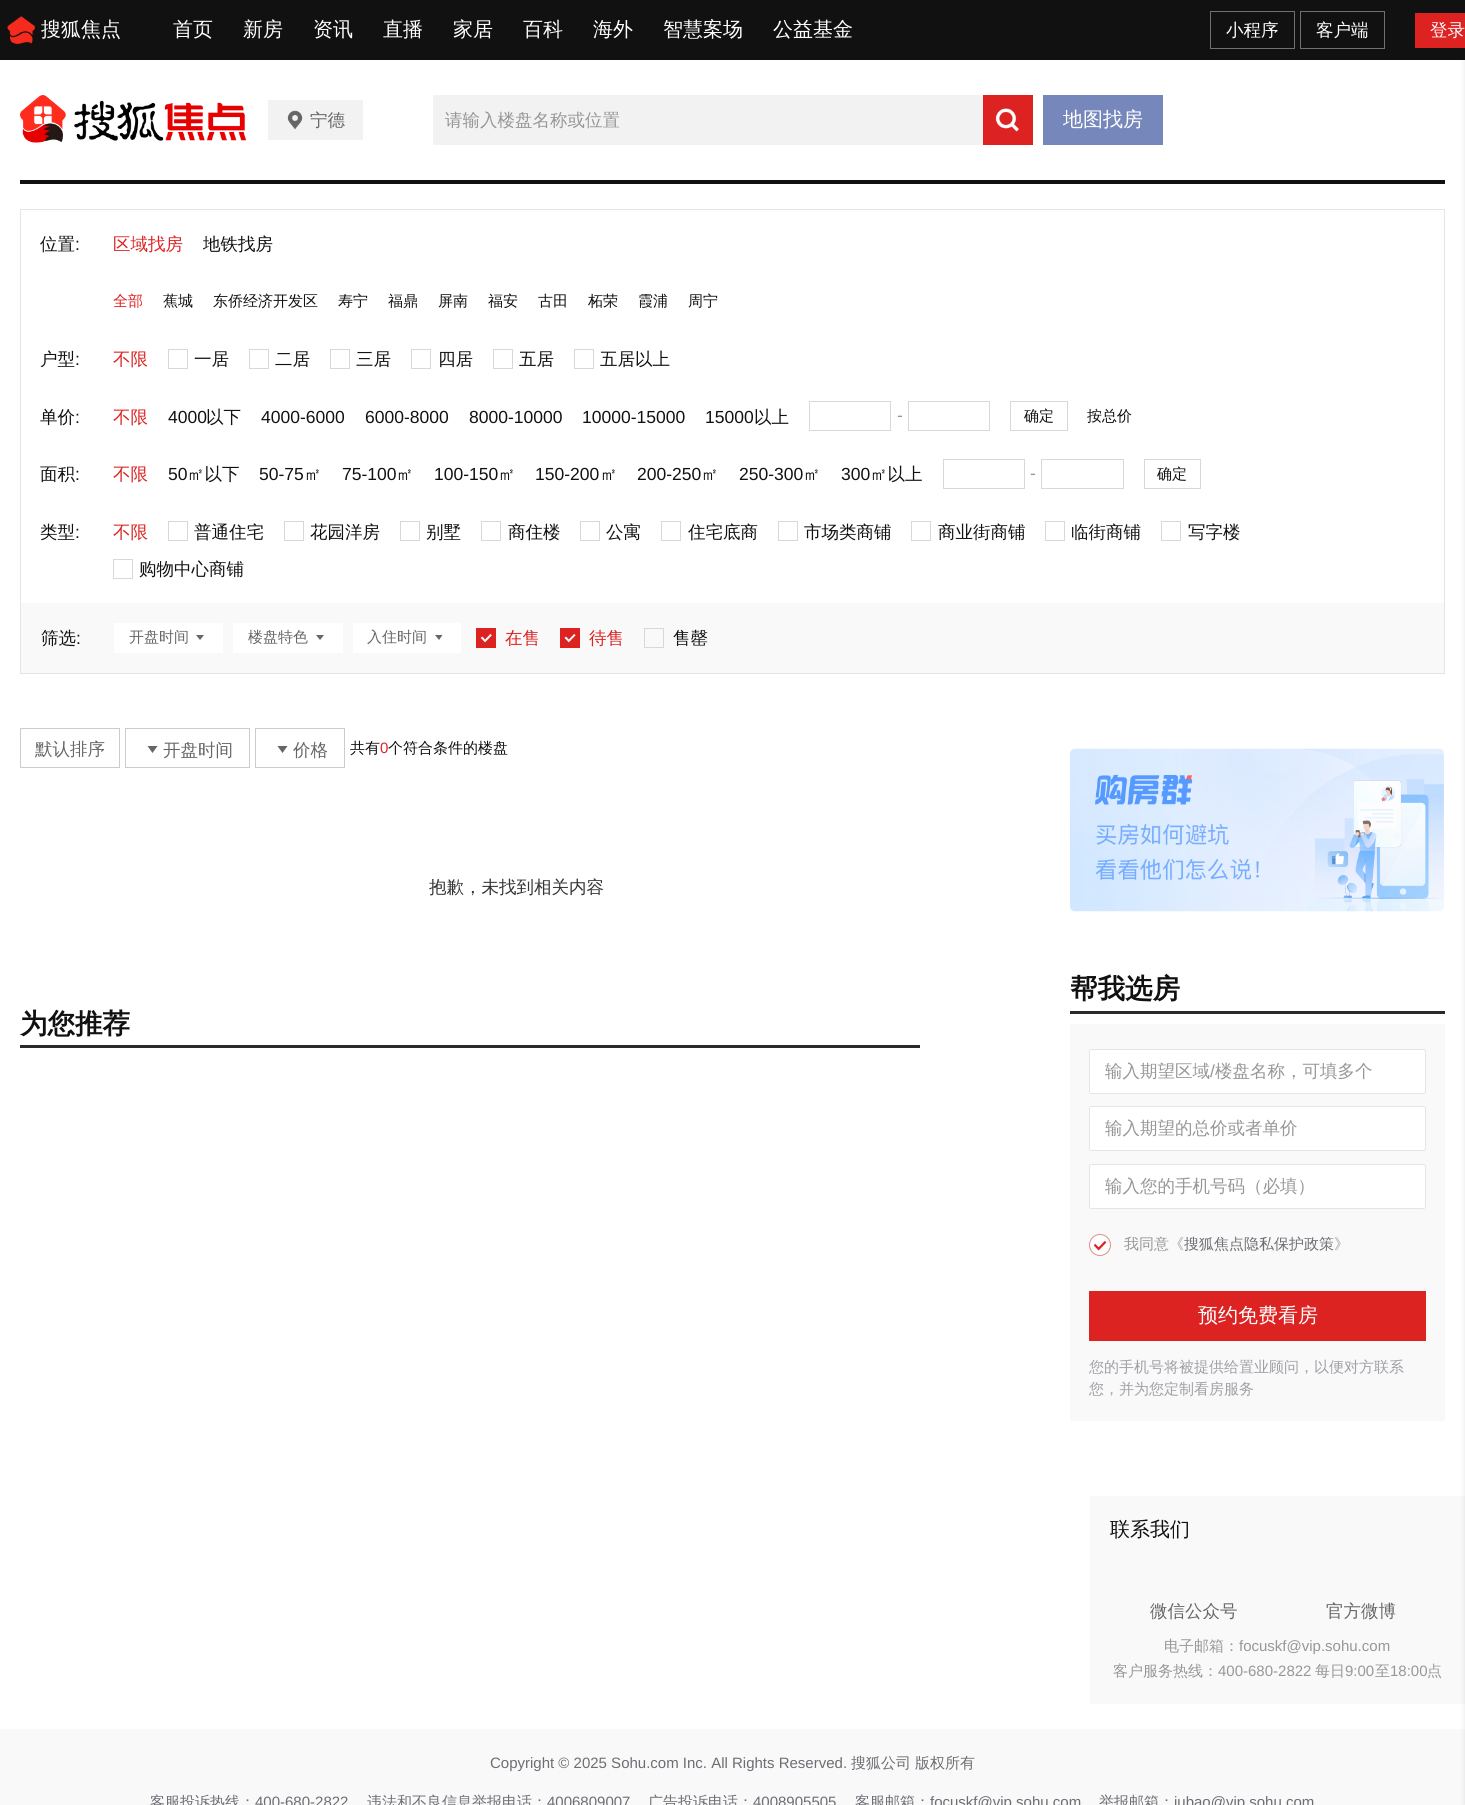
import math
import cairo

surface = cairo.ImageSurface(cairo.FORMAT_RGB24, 1465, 1805)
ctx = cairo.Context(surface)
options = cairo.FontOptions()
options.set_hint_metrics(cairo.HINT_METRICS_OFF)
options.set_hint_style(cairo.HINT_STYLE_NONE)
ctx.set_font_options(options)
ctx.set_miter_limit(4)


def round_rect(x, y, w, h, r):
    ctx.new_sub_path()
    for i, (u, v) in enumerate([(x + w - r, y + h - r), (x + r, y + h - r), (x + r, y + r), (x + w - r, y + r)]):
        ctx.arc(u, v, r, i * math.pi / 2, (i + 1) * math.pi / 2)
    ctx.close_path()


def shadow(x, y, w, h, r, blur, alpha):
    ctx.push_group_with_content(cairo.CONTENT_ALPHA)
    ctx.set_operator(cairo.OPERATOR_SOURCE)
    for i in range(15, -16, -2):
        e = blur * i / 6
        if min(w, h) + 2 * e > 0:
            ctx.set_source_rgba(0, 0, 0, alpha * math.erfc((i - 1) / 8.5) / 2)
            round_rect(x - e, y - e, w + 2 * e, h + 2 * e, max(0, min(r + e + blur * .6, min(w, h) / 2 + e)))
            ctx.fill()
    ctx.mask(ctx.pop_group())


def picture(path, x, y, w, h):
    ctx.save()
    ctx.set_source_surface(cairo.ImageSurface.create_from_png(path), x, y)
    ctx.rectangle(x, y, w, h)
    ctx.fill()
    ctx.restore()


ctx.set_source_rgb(1, 1, 1)
ctx.paint()
ctx.set_source_rgb(0.973, 0.973, 0.973)
ctx.rectangle(1090, 1496, 375, 208)
ctx.fill()
ctx.rectangle(0, 1729, 1465, 76)
ctx.fill()
ctx.set_source_rgb(0, 0, 0)
shadow(1463, 0, 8, 1805, 0, 2, 0.06)
ctx.set_source_rgb(0.067, 0.067, 0.067)
ctx.rectangle(0, 0, 1465, 60)
ctx.fill()
picture("img1.png", 7, 16, 29, 28)
ctx.select_font_face("WenQuanYi Zen Hei Medium")
ctx.set_font_size(20)
ctx.set_source_rgb(1, 1, 1)
ctx.move_to(41, 36)
ctx.show_text("搜狐焦点")
ctx.move_to(173, 36)
ctx.show_text("首页")
ctx.move_to(243, 36)
ctx.show_text("新房")
ctx.move_to(313, 36)
ctx.show_text("资讯")
ctx.move_to(383, 36)
ctx.show_text("直播")
ctx.move_to(453, 36)
ctx.show_text("家居")
ctx.move_to(523, 36)
ctx.show_text("百科")
ctx.move_to(593, 36)
ctx.show_text("海外")
ctx.move_to(663, 36)
ctx.show_text("智慧案场")
ctx.move_to(773, 36)
ctx.show_text("公益基金")
ctx.rectangle(1210.5, 11.5, 84, 37)
ctx.set_source_rgb(0.439, 0.439, 0.439)
ctx.set_line_width(1)
ctx.stroke()
ctx.set_font_size(17.5)
ctx.set_source_rgb(1, 1, 1)
ctx.move_to(1226, 36)
ctx.show_text("小程序")
ctx.rectangle(1300.5, 11.5, 84, 37)
ctx.set_source_rgb(0.439, 0.439, 0.439)
ctx.stroke()
ctx.set_source_rgb(1, 1, 1)
ctx.move_to(1316, 36)
ctx.show_text("客户端")
ctx.set_source_rgb(0.867, 0.133, 0.133)
ctx.rectangle(1415, 13, 50, 35)
ctx.fill()
ctx.set_source_rgb(1, 1, 1)
ctx.move_to(1430, 36)
ctx.show_text("登录")
ctx.set_source_rgb(0.067, 0.067, 0.067)
ctx.rectangle(20, 180, 1425, 4)
ctx.fill()
picture("img2.png", 20, 95, 227, 48)
ctx.set_source_rgb(0.949, 0.949, 0.949)
ctx.rectangle(268, 100, 95, 40)
ctx.fill()
picture("img3.png", 287, 110, 16, 20)
ctx.set_source_rgb(0.4, 0.4, 0.4)
ctx.move_to(310, 126)
ctx.show_text("宁德")
ctx.set_source_rgb(0.949, 0.949, 0.949)
ctx.rectangle(433, 95, 550, 50)
ctx.fill()
ctx.set_source_rgb(0.592, 0.592, 0.592)
ctx.move_to(445, 126)
ctx.show_text("请输入楼盘名称或位置")
ctx.set_source_rgb(0.867, 0.133, 0.133)
ctx.rectangle(983, 95, 50, 50)
ctx.fill()
picture("img4.png", 995, 108, 24, 24)
ctx.set_source_rgb(0.463, 0.529, 0.733)
ctx.rectangle(1043, 95, 120, 50)
ctx.fill()
ctx.set_font_size(20)
ctx.set_source_rgb(1, 1, 1)
ctx.move_to(1063, 126)
ctx.show_text("地图找房")
ctx.rectangle(20.5, 209.5, 1424, 464)
ctx.set_source_rgb(0.898, 0.898, 0.898)
ctx.stroke()
ctx.set_font_size(17.5)
ctx.set_source_rgb(0.067, 0.067, 0.067)
ctx.move_to(40, 250)
ctx.show_text("位置")
ctx.select_font_face("Liberation Sans")
ctx.move_to(75, 250)
ctx.show_text(":")
ctx.select_font_face("WenQuanYi Zen Hei Medium")
ctx.set_source_rgb(0.867, 0.133, 0.133)
ctx.move_to(113, 250)
ctx.show_text("区域找房")
ctx.set_source_rgb(0.067, 0.067, 0.067)
ctx.move_to(203, 250)
ctx.show_text("地铁找房")
ctx.set_font_size(15)
ctx.set_source_rgb(0.867, 0.133, 0.133)
ctx.move_to(113, 306)
ctx.show_text("全部")
ctx.set_source_rgb(0.067, 0.067, 0.067)
ctx.move_to(163, 306)
ctx.show_text("蕉城")
ctx.move_to(213, 306)
ctx.show_text("东侨经济开发区")
ctx.move_to(338, 306)
ctx.show_text("寿宁")
ctx.move_to(388, 306)
ctx.show_text("福鼎")
ctx.move_to(438, 306)
ctx.show_text("屏南")
ctx.move_to(488, 306)
ctx.show_text("福安")
ctx.move_to(538, 306)
ctx.show_text("古田")
ctx.move_to(588, 306)
ctx.show_text("柘荣")
ctx.move_to(638, 306)
ctx.show_text("霞浦")
ctx.move_to(688, 306)
ctx.show_text("周宁")
ctx.set_font_size(17.5)
ctx.move_to(40, 365)
ctx.show_text("户型")
ctx.select_font_face("Liberation Sans")
ctx.move_to(75, 365)
ctx.show_text(":")
ctx.select_font_face("WenQuanYi Zen Hei Medium")
ctx.set_source_rgb(0.867, 0.133, 0.133)
ctx.move_to(113, 365)
ctx.show_text("不限")
ctx.rectangle(168.5, 349.5, 19, 19)
ctx.set_source_rgb(0.847, 0.847, 0.847)
ctx.stroke()
ctx.set_source_rgb(0.067, 0.067, 0.067)
ctx.move_to(194, 365)
ctx.show_text("一居")
ctx.rectangle(249.5, 349.5, 19, 19)
ctx.set_source_rgb(0.847, 0.847, 0.847)
ctx.stroke()
ctx.set_source_rgb(0.067, 0.067, 0.067)
ctx.move_to(275, 365)
ctx.show_text("二居")
ctx.rectangle(330.5, 349.5, 19, 19)
ctx.set_source_rgb(0.847, 0.847, 0.847)
ctx.stroke()
ctx.set_source_rgb(0.067, 0.067, 0.067)
ctx.move_to(356, 365)
ctx.show_text("三居")
ctx.rectangle(411.5, 349.5, 19, 19)
ctx.set_source_rgb(0.847, 0.847, 0.847)
ctx.stroke()
ctx.set_source_rgb(0.067, 0.067, 0.067)
ctx.move_to(438, 365)
ctx.show_text("四居")
ctx.rectangle(493.5, 349.5, 19, 19)
ctx.set_source_rgb(0.847, 0.847, 0.847)
ctx.stroke()
ctx.set_source_rgb(0.067, 0.067, 0.067)
ctx.move_to(519, 365)
ctx.show_text("五居")
ctx.rectangle(574.5, 349.5, 19, 19)
ctx.set_source_rgb(0.847, 0.847, 0.847)
ctx.stroke()
ctx.set_source_rgb(0.067, 0.067, 0.067)
ctx.move_to(600, 365)
ctx.show_text("五居以上")
ctx.move_to(40, 423)
ctx.show_text("单价")
ctx.select_font_face("Liberation Sans")
ctx.move_to(75, 423)
ctx.show_text(":")
ctx.select_font_face("WenQuanYi Zen Hei Medium")
ctx.set_source_rgb(0.867, 0.133, 0.133)
ctx.move_to(113, 423)
ctx.show_text("不限")
ctx.select_font_face("Liberation Sans")
ctx.set_source_rgb(0.067, 0.067, 0.067)
ctx.move_to(168, 423)
ctx.show_text("4000")
ctx.select_font_face("WenQuanYi Zen Hei Medium")
ctx.move_to(206, 423)
ctx.show_text("以下")
ctx.select_font_face("Liberation Sans")
ctx.move_to(261, 423)
ctx.show_text("4000-6000")
ctx.move_to(365, 423)
ctx.show_text("6000-8000")
ctx.move_to(469, 423)
ctx.show_text("8000-10000")
ctx.move_to(582, 423)
ctx.show_text("10000-15000")
ctx.move_to(705, 423)
ctx.show_text("15000")
ctx.select_font_face("WenQuanYi Zen Hei Medium")
ctx.move_to(754, 423)
ctx.show_text("以上")
ctx.rectangle(809.5, 401.5, 81, 29)
ctx.set_source_rgb(0.847, 0.847, 0.847)
ctx.stroke()
ctx.select_font_face("Liberation Sans")
ctx.set_source_rgb(0.592, 0.592, 0.592)
ctx.move_to(897, 421)
ctx.show_text("-")
ctx.rectangle(908.5, 401.5, 81, 29)
ctx.set_source_rgb(0.847, 0.847, 0.847)
ctx.stroke()
ctx.rectangle(1010.5, 401.5, 57, 29)
ctx.stroke()
ctx.select_font_face("WenQuanYi Zen Hei Medium")
ctx.set_font_size(15)
ctx.set_source_rgb(0.067, 0.067, 0.067)
ctx.move_to(1024, 421)
ctx.show_text("确定")
ctx.move_to(1087, 421)
ctx.show_text("按总价")
ctx.set_font_size(17.5)
ctx.move_to(40, 480)
ctx.show_text("面积")
ctx.select_font_face("Liberation Sans")
ctx.move_to(75, 480)
ctx.show_text(":")
ctx.select_font_face("WenQuanYi Zen Hei Medium")
ctx.set_source_rgb(0.867, 0.133, 0.133)
ctx.move_to(113, 480)
ctx.show_text("不限")
ctx.select_font_face("Liberation Sans")
ctx.set_source_rgb(0.067, 0.067, 0.067)
ctx.move_to(168, 480)
ctx.show_text("50")
ctx.select_font_face("WenQuanYi Zen Hei Medium")
ctx.move_to(187, 480)
ctx.show_text("㎡以下")
ctx.select_font_face("Liberation Sans")
ctx.move_to(259, 480)
ctx.show_text("50-75")
ctx.select_font_face("WenQuanYi Zen Hei Medium")
ctx.move_to(304, 480)
ctx.show_text("㎡")
ctx.select_font_face("Liberation Sans")
ctx.move_to(342, 480)
ctx.show_text("75-100")
ctx.select_font_face("WenQuanYi Zen Hei Medium")
ctx.move_to(396, 480)
ctx.show_text("㎡")
ctx.select_font_face("Liberation Sans")
ctx.move_to(434, 480)
ctx.show_text("100-150")
ctx.select_font_face("WenQuanYi Zen Hei Medium")
ctx.move_to(498, 480)
ctx.show_text("㎡")
ctx.select_font_face("Liberation Sans")
ctx.move_to(535, 480)
ctx.show_text("150-200")
ctx.select_font_face("WenQuanYi Zen Hei Medium")
ctx.move_to(600, 480)
ctx.show_text("㎡")
ctx.select_font_face("Liberation Sans")
ctx.move_to(637, 480)
ctx.show_text("200-250")
ctx.select_font_face("WenQuanYi Zen Hei Medium")
ctx.move_to(701, 480)
ctx.show_text("㎡")
ctx.select_font_face("Liberation Sans")
ctx.move_to(739, 480)
ctx.show_text("250-300")
ctx.select_font_face("WenQuanYi Zen Hei Medium")
ctx.move_to(803, 480)
ctx.show_text("㎡")
ctx.select_font_face("Liberation Sans")
ctx.move_to(841, 480)
ctx.show_text("300")
ctx.select_font_face("WenQuanYi Zen Hei Medium")
ctx.move_to(870, 480)
ctx.show_text("㎡以上")
ctx.rectangle(943.5, 459.5, 81, 29)
ctx.set_source_rgb(0.847, 0.847, 0.847)
ctx.stroke()
ctx.select_font_face("Liberation Sans")
ctx.set_source_rgb(0.592, 0.592, 0.592)
ctx.move_to(1030, 479)
ctx.show_text("-")
ctx.rectangle(1041.5, 459.5, 82, 29)
ctx.set_source_rgb(0.847, 0.847, 0.847)
ctx.stroke()
ctx.rectangle(1144.5, 459.5, 56, 29)
ctx.stroke()
ctx.select_font_face("WenQuanYi Zen Hei Medium")
ctx.set_font_size(15)
ctx.set_source_rgb(0.067, 0.067, 0.067)
ctx.move_to(1157, 479)
ctx.show_text("确定")
ctx.set_font_size(17.5)
ctx.move_to(40, 538)
ctx.show_text("类型")
ctx.select_font_face("Liberation Sans")
ctx.move_to(75, 538)
ctx.show_text(":")
ctx.select_font_face("WenQuanYi Zen Hei Medium")
ctx.set_source_rgb(0.867, 0.133, 0.133)
ctx.move_to(113, 538)
ctx.show_text("不限")
ctx.rectangle(168.5, 521.5, 19, 19)
ctx.set_source_rgb(0.847, 0.847, 0.847)
ctx.stroke()
ctx.set_source_rgb(0.067, 0.067, 0.067)
ctx.move_to(194, 538)
ctx.show_text("普通住宅")
ctx.rectangle(284.5, 521.5, 19, 19)
ctx.set_source_rgb(0.847, 0.847, 0.847)
ctx.stroke()
ctx.set_source_rgb(0.067, 0.067, 0.067)
ctx.move_to(310, 538)
ctx.show_text("花园洋房")
ctx.rectangle(400.5, 521.5, 19, 19)
ctx.set_source_rgb(0.847, 0.847, 0.847)
ctx.stroke()
ctx.set_source_rgb(0.067, 0.067, 0.067)
ctx.move_to(426, 538)
ctx.show_text("别墅")
ctx.rectangle(481.5, 521.5, 19, 19)
ctx.set_source_rgb(0.847, 0.847, 0.847)
ctx.stroke()
ctx.set_source_rgb(0.067, 0.067, 0.067)
ctx.move_to(508, 538)
ctx.show_text("商住楼")
ctx.rectangle(580.5, 521.5, 19, 19)
ctx.set_source_rgb(0.847, 0.847, 0.847)
ctx.stroke()
ctx.set_source_rgb(0.067, 0.067, 0.067)
ctx.move_to(606, 538)
ctx.show_text("公寓")
ctx.rectangle(661.5, 521.5, 19, 19)
ctx.set_source_rgb(0.847, 0.847, 0.847)
ctx.stroke()
ctx.set_source_rgb(0.067, 0.067, 0.067)
ctx.move_to(688, 538)
ctx.show_text("住宅底商")
ctx.rectangle(778.5, 521.5, 19, 19)
ctx.set_source_rgb(0.847, 0.847, 0.847)
ctx.stroke()
ctx.set_source_rgb(0.067, 0.067, 0.067)
ctx.move_to(804, 538)
ctx.show_text("市场类商铺")
ctx.rectangle(911.5, 521.5, 19, 19)
ctx.set_source_rgb(0.847, 0.847, 0.847)
ctx.stroke()
ctx.set_source_rgb(0.067, 0.067, 0.067)
ctx.move_to(938, 538)
ctx.show_text("商业街商铺")
ctx.rectangle(1045.5, 521.5, 19, 19)
ctx.set_source_rgb(0.847, 0.847, 0.847)
ctx.stroke()
ctx.set_source_rgb(0.067, 0.067, 0.067)
ctx.move_to(1071, 538)
ctx.show_text("临街商铺")
ctx.rectangle(1161.5, 521.5, 19, 19)
ctx.set_source_rgb(0.847, 0.847, 0.847)
ctx.stroke()
ctx.set_source_rgb(0.067, 0.067, 0.067)
ctx.move_to(1188, 538)
ctx.show_text("写字楼")
ctx.rectangle(113.5, 559.5, 19, 19)
ctx.set_source_rgb(0.847, 0.847, 0.847)
ctx.stroke()
ctx.set_source_rgb(0.067, 0.067, 0.067)
ctx.move_to(139, 575)
ctx.show_text("购物中心商铺")
ctx.set_source_rgb(0.973, 0.973, 0.973)
ctx.rectangle(21, 603, 1423, 70)
ctx.fill()
ctx.set_source_rgb(0.067, 0.067, 0.067)
ctx.move_to(41, 644)
ctx.show_text("筛选")
ctx.select_font_face("Liberation Sans")
ctx.move_to(76, 644)
ctx.show_text(":")
ctx.set_source_rgb(1, 1, 1)
ctx.rectangle(114, 623, 109, 30)
ctx.fill()
ctx.select_font_face("WenQuanYi Zen Hei Medium")
ctx.set_font_size(15)
ctx.set_source_rgb(0.4, 0.4, 0.4)
ctx.move_to(129, 642)
ctx.show_text("开盘时间")
ctx.new_path()
ctx.move_to(196, 635)
ctx.line_to(204, 635)
ctx.line_to(200, 640)
ctx.close_path()
ctx.fill()
ctx.set_source_rgb(1, 1, 1)
ctx.rectangle(233, 623, 110, 30)
ctx.fill()
ctx.set_source_rgb(0.4, 0.4, 0.4)
ctx.move_to(248, 642)
ctx.show_text("楼盘特色")
ctx.new_path()
ctx.move_to(316, 635)
ctx.line_to(324, 635)
ctx.line_to(320, 640)
ctx.close_path()
ctx.fill()
ctx.set_source_rgb(1, 1, 1)
ctx.rectangle(353, 623, 108, 30)
ctx.fill()
ctx.set_source_rgb(0.4, 0.4, 0.4)
ctx.move_to(367, 642)
ctx.show_text("入住时间")
ctx.new_path()
ctx.move_to(435, 635)
ctx.line_to(442.5, 635)
ctx.line_to(439, 640)
ctx.close_path()
ctx.fill()
ctx.set_source_rgb(0.867, 0.133, 0.133)
ctx.rectangle(476, 628, 20, 20)
ctx.fill()
picture("img5.png", 480, 633, 12, 10)
ctx.set_font_size(17.5)
ctx.move_to(505, 644)
ctx.show_text("在售")
ctx.rectangle(560, 628, 20, 20)
ctx.fill()
picture("img6.png", 564, 633, 12, 10)
ctx.move_to(589, 644)
ctx.show_text("待售")
ctx.rectangle(644.5, 628.5, 19, 19)
ctx.set_source_rgb(0.847, 0.847, 0.847)
ctx.stroke()
ctx.set_source_rgb(0.067, 0.067, 0.067)
ctx.move_to(673, 644)
ctx.show_text("售罄")
ctx.rectangle(20.5, 728.5, 99, 39)
ctx.set_source_rgb(0.8, 0.8, 0.8)
ctx.stroke()
ctx.set_source_rgb(0.4, 0.4, 0.4)
ctx.move_to(35, 755)
ctx.show_text("默认排序")
ctx.rectangle(125.5, 728.5, 124, 39)
ctx.set_source_rgb(0.8, 0.8, 0.8)
ctx.stroke()
ctx.set_source_rgb(0.4, 0.4, 0.4)
ctx.new_path()
ctx.move_to(147.5, 746)
ctx.line_to(157.5, 746)
ctx.line_to(152.5, 753)
ctx.close_path()
ctx.fill()
ctx.move_to(163, 756)
ctx.show_text("开盘时间")
ctx.rectangle(255.5, 728.5, 89, 39)
ctx.set_source_rgb(0.8, 0.8, 0.8)
ctx.stroke()
ctx.set_source_rgb(0.4, 0.4, 0.4)
ctx.new_path()
ctx.move_to(277.5, 746)
ctx.line_to(287.5, 746)
ctx.line_to(282.5, 753)
ctx.close_path()
ctx.fill()
ctx.move_to(293, 756)
ctx.show_text("价格")
ctx.set_font_size(15)
ctx.set_source_rgb(0.067, 0.067, 0.067)
ctx.move_to(350, 753)
ctx.show_text("共有")
ctx.select_font_face("Liberation Sans")
ctx.set_source_rgb(0.867, 0.133, 0.133)
ctx.move_to(380, 753)
ctx.show_text("0")
ctx.select_font_face("WenQuanYi Zen Hei Medium")
ctx.set_source_rgb(0.067, 0.067, 0.067)
ctx.move_to(388, 753)
ctx.show_text("个符合条件的楼盘")
ctx.set_font_size(17.5)
ctx.set_source_rgb(0.2, 0.2, 0.2)
ctx.move_to(429, 893)
ctx.show_text("抱歉，未找到相关内容")
ctx.set_source_rgb(0.165, 0.165, 0.165)
ctx.rectangle(20, 1045, 900, 3)
ctx.fill()
ctx.select_font_face("WenQuanYi Zen Hei", cairo.FONT_SLANT_NORMAL, cairo.FONT_WEIGHT_BOLD)
ctx.set_font_size(27.5)
ctx.set_source_rgb(0.067, 0.067, 0.067)
ctx.move_to(20, 1033)
ctx.show_text("为您推荐")
picture("img7.png", 1070, 748, 374, 164)
ctx.set_source_rgb(0.165, 0.165, 0.165)
ctx.rectangle(1070, 1011, 375, 3)
ctx.fill()
ctx.set_source_rgb(0.067, 0.067, 0.067)
ctx.move_to(1070, 998)
ctx.show_text("帮我选房")
ctx.set_source_rgb(0.973, 0.973, 0.973)
ctx.rectangle(1070, 1024, 375, 397)
ctx.fill()
ctx.set_source_rgb(1, 1, 1)
round_rect(1089.5, 1049.5, 336, 44, 2)
ctx.fill_preserve()
ctx.set_source_rgb(0.898, 0.898, 0.898)
ctx.stroke()
ctx.select_font_face("WenQuanYi Zen Hei Medium")
ctx.set_font_size(17.5)
ctx.set_source_rgb(0.592, 0.592, 0.592)
ctx.move_to(1105, 1077)
ctx.show_text("输入期望区域")
ctx.select_font_face("Liberation Sans")
ctx.move_to(1210, 1077)
ctx.show_text("/")
ctx.select_font_face("WenQuanYi Zen Hei Medium")
ctx.move_to(1215, 1077)
ctx.show_text("楼盘名称，可填多个")
ctx.set_source_rgb(1, 1, 1)
round_rect(1089.5, 1106.5, 336, 44, 2)
ctx.fill_preserve()
ctx.set_source_rgb(0.898, 0.898, 0.898)
ctx.stroke()
ctx.set_source_rgb(0.592, 0.592, 0.592)
ctx.move_to(1105, 1134)
ctx.show_text("输入期望的总价或者单价")
ctx.set_source_rgb(1, 1, 1)
round_rect(1089.5, 1164.5, 336, 44, 2)
ctx.fill_preserve()
ctx.set_source_rgb(0.898, 0.898, 0.898)
ctx.stroke()
ctx.set_source_rgb(0.592, 0.592, 0.592)
ctx.move_to(1105, 1192)
ctx.show_text("输入您的手机号码（必填）")
ctx.set_source_rgb(1, 1, 1)
ctx.new_path()
ctx.arc(1100, 1245, 11, 0, 2 * math.pi)
ctx.fill()
picture("img8.png", 1093, 1240, 14, 11)
ctx.arc(1100, 1245, 10.5, 0, 2 * math.pi)
ctx.set_source_rgb(0.867, 0.545, 0.545)
ctx.stroke()
ctx.set_font_size(15)
ctx.set_source_rgb(0.592, 0.592, 0.592)
ctx.move_to(1124, 1249)
ctx.show_text("我同意《")
ctx.set_source_rgb(0.427, 0.427, 0.451)
ctx.move_to(1184, 1249)
ctx.show_text("搜狐焦点隐私保护政策")
ctx.set_source_rgb(0.592, 0.592, 0.592)
ctx.move_to(1334, 1249)
ctx.show_text("》")
ctx.set_source_rgb(0.867, 0.133, 0.133)
ctx.rectangle(1089, 1291, 337, 50)
ctx.fill()
ctx.set_font_size(20)
ctx.set_source_rgb(1, 1, 1)
ctx.move_to(1198, 1322)
ctx.show_text("预约免费看房")
ctx.set_font_size(15)
ctx.set_source_rgb(0.624, 0.624, 0.651)
ctx.move_to(1089, 1372)
ctx.show_text("您的手机号将被提供给置业顾问，以便对方联系")
ctx.move_to(1089, 1394)
ctx.show_text("您，并为您定制看房服务")
ctx.set_font_size(20)
ctx.set_source_rgb(0.067, 0.067, 0.067)
ctx.move_to(1110, 1536)
ctx.show_text("联系我们")
ctx.set_font_size(17.5)
ctx.set_source_rgb(0.4, 0.4, 0.4)
ctx.move_to(1150, 1617)
ctx.show_text("微信公众号")
ctx.move_to(1326, 1617)
ctx.show_text("官方微博")
ctx.set_font_size(15)
ctx.set_source_rgb(0.592, 0.592, 0.592)
ctx.move_to(1164, 1651)
ctx.show_text("电子邮箱：")
ctx.select_font_face("Liberation Sans")
ctx.move_to(1239, 1651)
ctx.show_text("focuskf@vip.sohu.com")
ctx.select_font_face("WenQuanYi Zen Hei Medium")
ctx.move_to(1113, 1676)
ctx.show_text("客户服务热线：")
ctx.select_font_face("Liberation Sans")
ctx.move_to(1218, 1676)
ctx.show_text("400-680-2822")
ctx.select_font_face("WenQuanYi Zen Hei Medium")
ctx.move_to(1315, 1676)
ctx.show_text("每日")
ctx.select_font_face("Liberation Sans")
ctx.move_to(1345, 1676)
ctx.show_text("9:00")
ctx.select_font_face("WenQuanYi Zen Hei Medium")
ctx.move_to(1375, 1676)
ctx.show_text("至")
ctx.select_font_face("Liberation Sans")
ctx.move_to(1390, 1676)
ctx.show_text("18:00")
ctx.select_font_face("WenQuanYi Zen Hei Medium")
ctx.move_to(1427, 1676)
ctx.show_text("点")
ctx.select_font_face("Liberation Sans")
ctx.set_source_rgb(0.427, 0.427, 0.451)
ctx.move_to(490, 1768)
ctx.show_text("Copyright © 2025 Sohu.com Inc. All Rights Reserved.")
ctx.select_font_face("WenQuanYi Zen Hei Medium")
ctx.move_to(851, 1768)
ctx.show_text("搜狐公司")
ctx.move_to(915, 1768)
ctx.show_text("版权所有")
ctx.move_to(150, 1807)
ctx.show_text("客服投诉热线：")
ctx.select_font_face("Liberation Sans")
ctx.move_to(255, 1807)
ctx.show_text("400-680-2822")
ctx.select_font_face("WenQuanYi Zen Hei Medium")
ctx.move_to(367, 1807)
ctx.show_text("违法和不良信息举报电话：")
ctx.select_font_face("Liberation Sans")
ctx.move_to(547, 1807)
ctx.show_text("4006809007")
ctx.select_font_face("WenQuanYi Zen Hei Medium")
ctx.move_to(648, 1807)
ctx.show_text("广告投诉电话：")
ctx.select_font_face("Liberation Sans")
ctx.move_to(753, 1807)
ctx.show_text("4008905505")
ctx.select_font_face("WenQuanYi Zen Hei Medium")
ctx.move_to(855, 1807)
ctx.show_text("客服邮箱：")
ctx.select_font_face("Liberation Sans")
ctx.move_to(930, 1807)
ctx.show_text("focuskf@vip.sohu.com")
ctx.select_font_face("WenQuanYi Zen Hei Medium")
ctx.move_to(1099, 1807)
ctx.show_text("举报邮箱：")
ctx.select_font_face("Liberation Sans")
ctx.move_to(1174, 1807)
ctx.show_text("jubao@vip.sohu.com")
surface.write_to_png("page.png")
